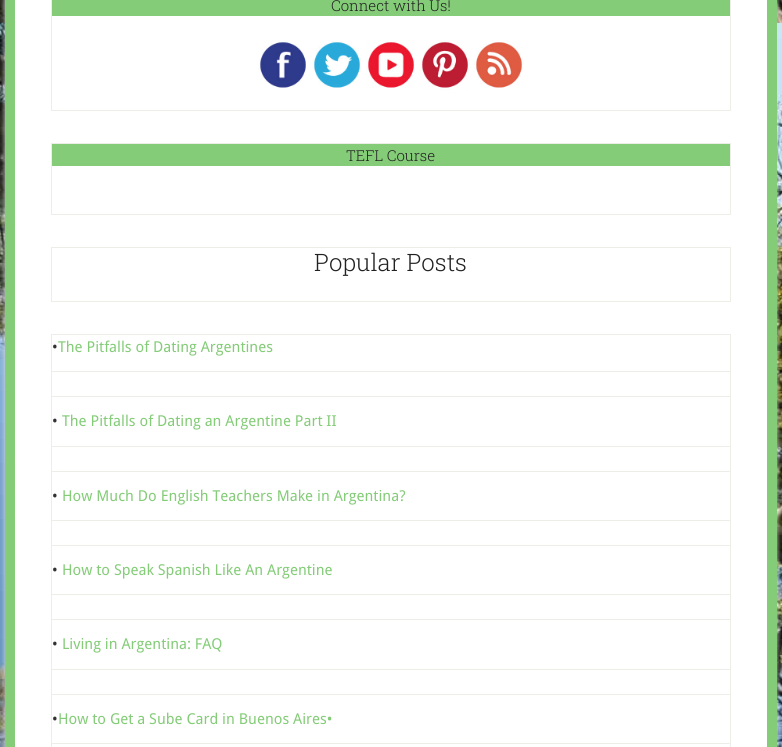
import math
import cairo

surface = cairo.ImageSurface(cairo.FORMAT_RGB24, 782, 747)
ctx = cairo.Context(surface)
options = cairo.FontOptions()
options.set_hint_metrics(cairo.HINT_METRICS_OFF)
options.set_hint_style(cairo.HINT_STYLE_NONE)
ctx.set_font_options(options)
ctx.set_miter_limit(4)


def round_rect(x, y, w, h, r):
    ctx.new_sub_path()
    for i, (u, v) in enumerate([(x + w - r, y + h - r), (x + r, y + h - r), (x + r, y + r), (x + w - r, y + r)]):
        ctx.arc(u, v, r, i * math.pi / 2, (i + 1) * math.pi / 2)
    ctx.close_path()


def shadow(x, y, w, h, r, blur, alpha):
    ctx.push_group_with_content(cairo.CONTENT_ALPHA)
    ctx.set_operator(cairo.OPERATOR_SOURCE)
    for i in range(15, -16, -2):
        e = blur * i / 6
        if min(w, h) + 2 * e > 0:
            ctx.set_source_rgba(0, 0, 0, alpha * math.erfc((i - 1) / 8.5) / 2)
            round_rect(x - e, y - e, w + 2 * e, h + 2 * e, max(0, min(r + e + blur * .6, min(w, h) / 2 + e)))
            ctx.fill()
    ctx.mask(ctx.pop_group())


def picture(path, x, y, w, h):
    ctx.save()
    ctx.set_source_surface(cairo.ImageSurface.create_from_png(path), x, y)
    ctx.rectangle(x, y, w, h)
    ctx.fill()
    ctx.restore()


ctx.set_source_rgb(1, 1, 1)
ctx.paint()
picture("img1.png", 0, 0, 782, 747)
ctx.set_source_rgb(0.867, 0.867, 0.867)
shadow(5, -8, 772, 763, 0, 2.5, 1)
ctx.set_source_rgb(1, 1, 1)
ctx.rectangle(10, -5, 762, 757)
ctx.fill_preserve()
ctx.set_source_rgb(0.518, 0.8, 0.471)
ctx.set_line_width(10)
ctx.stroke()
ctx.rectangle(51.5, -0.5, 679, 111)
ctx.set_source_rgb(0.933, 0.933, 0.91)
ctx.set_line_width(1)
ctx.stroke()
ctx.set_source_rgb(0.518, 0.8, 0.471)
ctx.rectangle(52, 0, 678, 16)
ctx.fill()
ctx.select_font_face("Roboto Slab Light")
ctx.set_font_size(15)
ctx.set_source_rgb(0.133, 0.133, 0.133)
ctx.move_to(331, 11)
ctx.show_text("Connect with Us!")
picture("img2.png", 258, 40, 48, 48)
picture("img3.png", 312, 41, 50, 47)
picture("img4.png", 366, 40, 49, 48)
picture("img5.png", 420, 40, 50, 50)
picture("img6.png", 474, 42, 50, 46)
ctx.rectangle(51.5, 143.5, 679, 71)
ctx.set_source_rgb(0.933, 0.933, 0.91)
ctx.stroke()
ctx.set_source_rgb(0.518, 0.8, 0.471)
ctx.rectangle(52, 144, 678, 22)
ctx.fill()
ctx.set_source_rgb(0.133, 0.133, 0.133)
ctx.move_to(346, 161)
ctx.show_text("TEFL Course")
ctx.rectangle(51.5, 247.5, 679, 54)
ctx.set_source_rgb(0.933, 0.933, 0.91)
ctx.stroke()
ctx.set_font_size(24)
ctx.set_source_rgb(0.133, 0.133, 0.133)
ctx.move_to(314, 271)
ctx.show_text("Popular Posts")
ctx.rectangle(51.5, 334.5, 679, 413)
ctx.set_source_rgb(0.933, 0.933, 0.91)
ctx.stroke()
ctx.rectangle(52, 371, 678, 1)
ctx.fill()
ctx.select_font_face("Droid Sans")
ctx.set_font_size(15)
ctx.set_source_rgb(0.196, 0.196, 0.196)
ctx.move_to(52, 352)
ctx.show_text("•")
ctx.set_source_rgb(0.518, 0.8, 0.471)
ctx.move_to(58, 352)
ctx.show_text("The Pitfalls of Dating Argentines")
ctx.set_source_rgb(0.933, 0.933, 0.91)
ctx.rectangle(52, 396, 678, 1)
ctx.fill()
ctx.rectangle(52, 446, 678, 1)
ctx.fill()
ctx.set_source_rgb(0.196, 0.196, 0.196)
ctx.move_to(52, 426)
ctx.show_text("•")
ctx.set_source_rgb(0.518, 0.8, 0.471)
ctx.move_to(62, 426)
ctx.show_text("The Pitfalls of Dating an Argentine Part II")
ctx.set_source_rgb(0.933, 0.933, 0.91)
ctx.rectangle(52, 471, 678, 1)
ctx.fill()
ctx.rectangle(52, 520, 678, 1)
ctx.fill()
ctx.set_source_rgb(0.196, 0.196, 0.196)
ctx.move_to(52, 501)
ctx.show_text("•")
ctx.set_source_rgb(0.518, 0.8, 0.471)
ctx.move_to(62, 501)
ctx.show_text("How Much Do English Teachers Make in Argentina?")
ctx.set_source_rgb(0.933, 0.933, 0.91)
ctx.rectangle(52, 545, 678, 1)
ctx.fill()
ctx.rectangle(52, 594, 678, 1)
ctx.fill()
ctx.set_source_rgb(0.196, 0.196, 0.196)
ctx.move_to(52, 575)
ctx.show_text("•")
ctx.set_source_rgb(0.518, 0.8, 0.471)
ctx.move_to(62, 575)
ctx.show_text("How to Speak Spanish Like An Argentine")
ctx.set_source_rgb(0.933, 0.933, 0.91)
ctx.rectangle(52, 619, 678, 1)
ctx.fill()
ctx.rectangle(52, 669, 678, 1)
ctx.fill()
ctx.set_source_rgb(0.196, 0.196, 0.196)
ctx.move_to(52, 649)
ctx.show_text("•")
ctx.set_source_rgb(0.518, 0.8, 0.471)
ctx.move_to(62, 649)
ctx.show_text("Living in Argentina: FAQ")
ctx.set_source_rgb(0.933, 0.933, 0.91)
ctx.rectangle(52, 694, 678, 1)
ctx.fill()
ctx.rectangle(52, 743, 678, 1)
ctx.fill()
ctx.set_source_rgb(0.196, 0.196, 0.196)
ctx.move_to(52, 724)
ctx.show_text("•")
ctx.set_source_rgb(0.518, 0.8, 0.471)
ctx.move_to(58, 724)
ctx.show_text("How to Get a Sube Card in Buenos Aires•")
surface.write_to_png("page.png")
